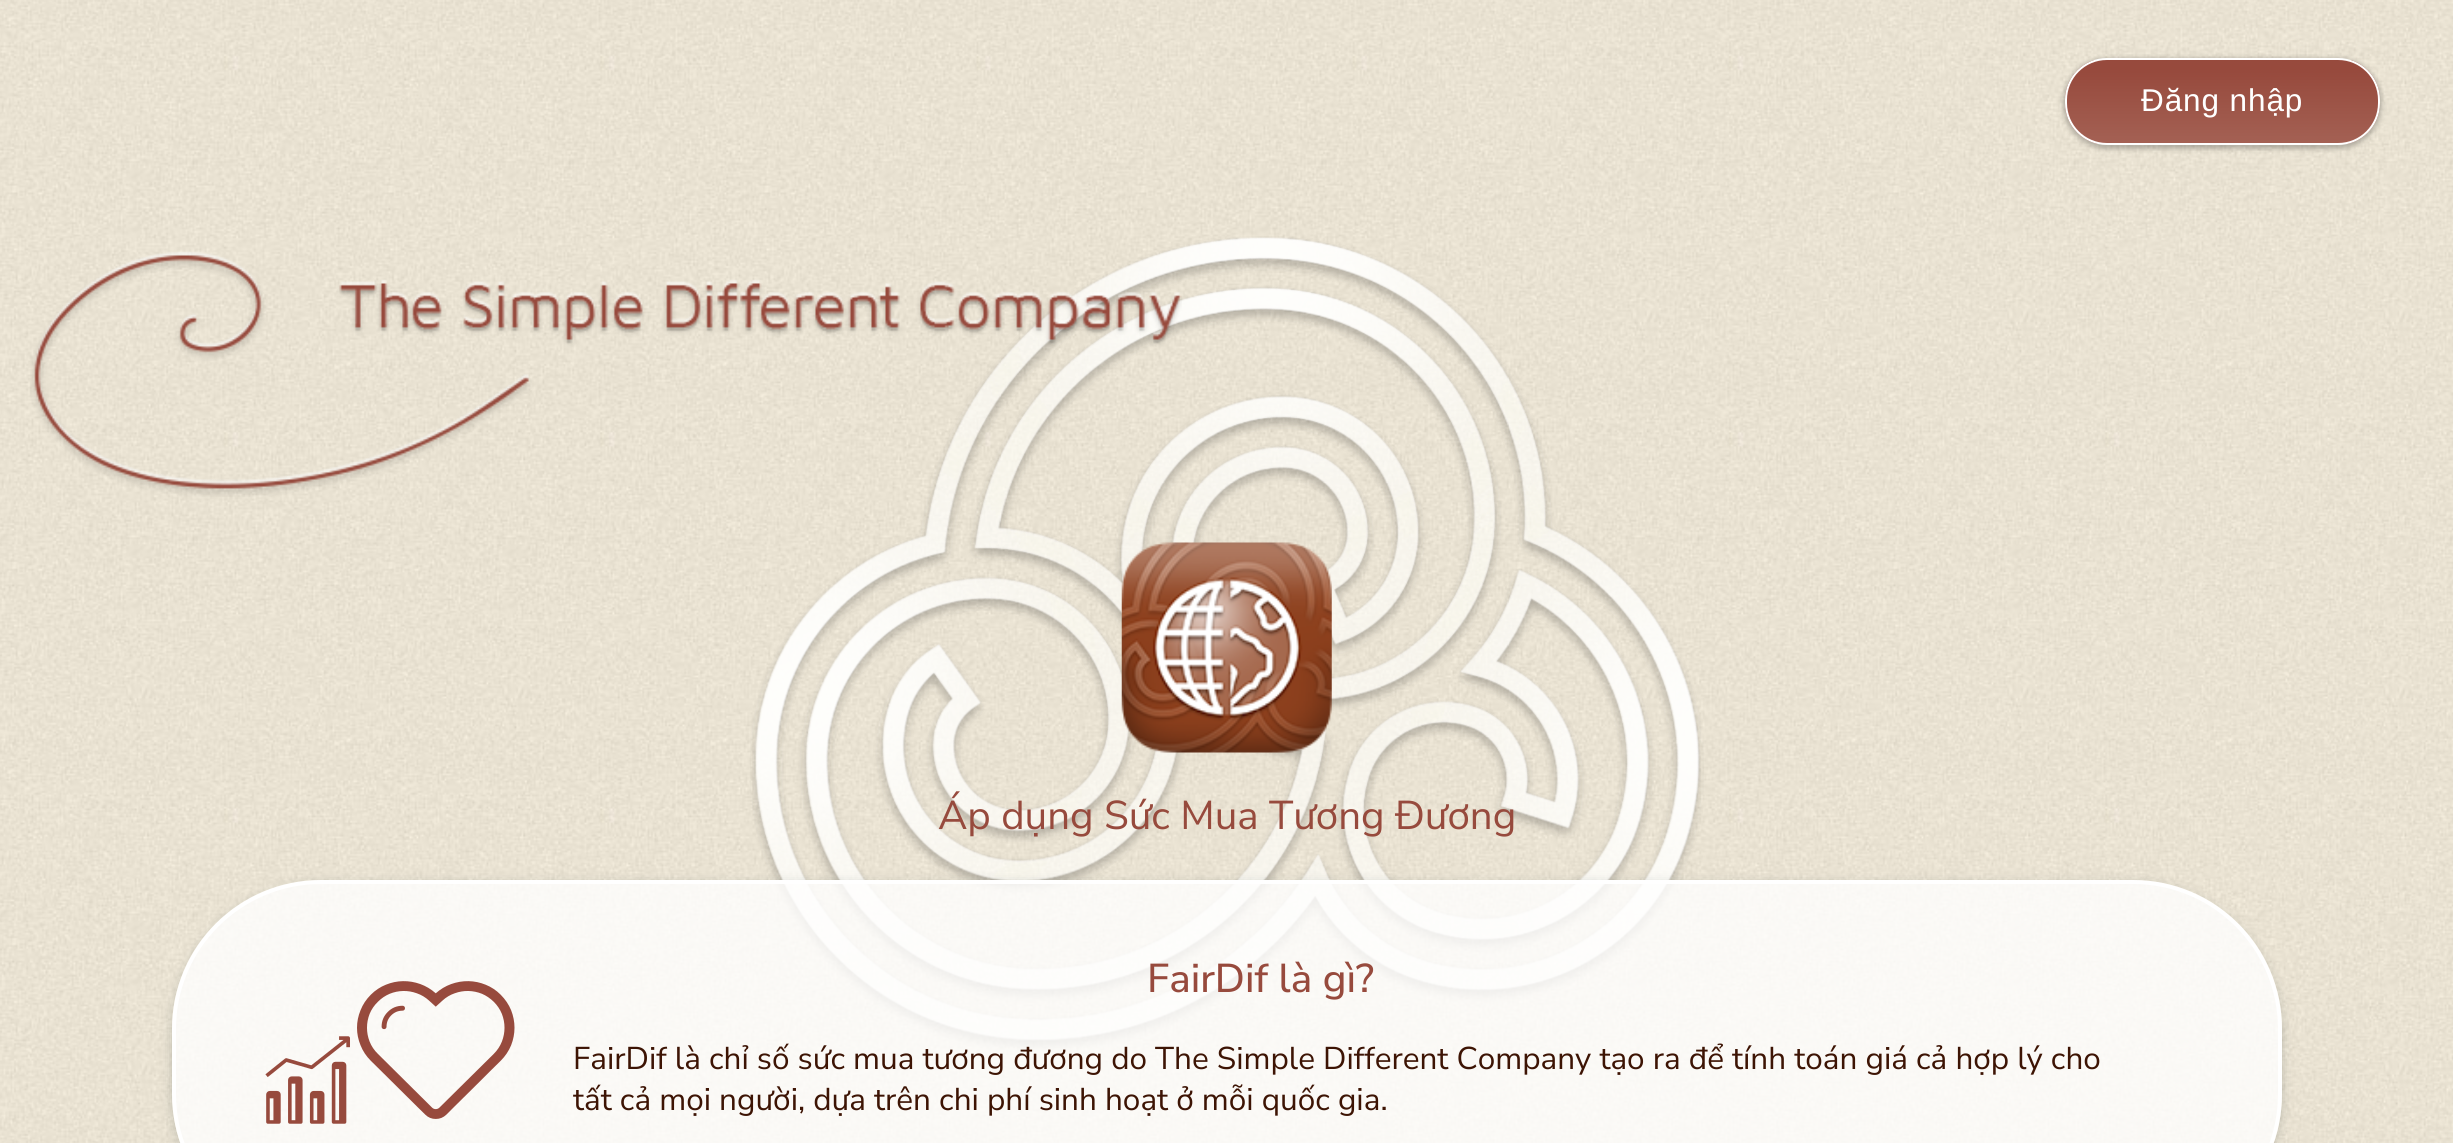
import math
import cairo

surface = cairo.ImageSurface(cairo.FORMAT_RGB24, 2453, 1143)
ctx = cairo.Context(surface)
options = cairo.FontOptions()
options.set_hint_metrics(cairo.HINT_METRICS_OFF)
options.set_hint_style(cairo.HINT_STYLE_NONE)
ctx.set_font_options(options)
ctx.set_miter_limit(4)


def spaced_text(x, y, s, letter, word):
    ctx.move_to(x, y)
    for ch in s:
        ctx.show_text(ch)
        ctx.rel_move_to(letter + word * (ch == ' '), 0)


def round_rect(x, y, w, h, r):
    ctx.new_sub_path()
    for i, (u, v) in enumerate([(x + w - r, y + h - r), (x + r, y + h - r), (x + r, y + r), (x + w - r, y + r)]):
        ctx.arc(u, v, r, i * math.pi / 2, (i + 1) * math.pi / 2)
    ctx.close_path()


def shadow(x, y, w, h, r, blur, alpha):
    ctx.push_group_with_content(cairo.CONTENT_ALPHA)
    ctx.set_operator(cairo.OPERATOR_SOURCE)
    for i in range(15, -16, -2):
        e = blur * i / 6
        if min(w, h) + 2 * e > 0:
            ctx.set_source_rgba(0, 0, 0, alpha * math.erfc((i - 1) / 8.5) / 2)
            round_rect(x - e, y - e, w + 2 * e, h + 2 * e, max(0, min(r + e + blur * .6, min(w, h) / 2 + e)))
            ctx.fill()
    ctx.mask(ctx.pop_group())


def picture(path, x, y, w, h):
    ctx.save()
    ctx.set_source_surface(cairo.ImageSurface.create_from_png(path), x, y)
    ctx.rectangle(x, y, w, h)
    ctx.fill()
    ctx.restore()


ctx.set_source_rgb(1, 1, 1)
ctx.paint()
picture("img1.png", 0, 0, 2453, 1143)
ctx.set_source_rgb(0, 0, 0)
shadow(2063, 58, 319, 91, 44, 2.5, 0.24)
ctx.save()
round_rect(2065, 58, 315, 87, 42)
ctx.clip()
gradient = cairo.LinearGradient(2223, 59, 2223, 144)
gradient.add_color_stop_rgba(0.15, 0.592, 0.29, 0.239, 1)
gradient.add_color_stop_rgba(1, 0.643, 0.38, 0.329, 1)
ctx.set_source(gradient)
ctx.rectangle(2065, 60, 315, 84)
ctx.fill()
ctx.restore()
round_rect(2066, 59, 313, 85, 41)
ctx.set_source_rgb(1, 1, 1)
ctx.stroke()
ctx.select_font_face("Liberation Sans")
ctx.set_font_size(31.5)
spaced_text(2141, 111, "Đăng nhập", 0.9, 0)
picture("img6.png", 750, 236, 954, 814)
picture("img7.png", 752, 238, 949, 810)
picture("img2.png", 30, 251, 1152, 246)
picture("img3.png", 1121, 542, 211, 211)
ctx.select_font_face("Nunito Sans")
ctx.set_font_size(40.25)
ctx.set_source_rgb(0.592, 0.29, 0.239)
ctx.move_to(938, 829)
ctx.show_text("Áp dụng Sức Mua Tương Đương")
ctx.save()
ctx.set_fill_rule(cairo.FILL_RULE_EVEN_ODD)
ctx.new_path()
ctx.move_to(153, 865)
ctx.line_to(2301, 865)
ctx.line_to(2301, 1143)
ctx.line_to(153, 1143)
ctx.close_path()
ctx.move_to(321, 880)
ctx.line_to(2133, 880)
ctx.curve_to(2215.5, 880, 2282, 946.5, 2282, 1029)
ctx.line_to(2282, 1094)
ctx.curve_to(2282, 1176.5, 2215.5, 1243, 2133, 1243)
ctx.line_to(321, 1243)
ctx.curve_to(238.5, 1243, 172, 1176.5, 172, 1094)
ctx.line_to(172, 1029)
ctx.curve_to(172, 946.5, 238.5, 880, 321, 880)
ctx.close_path()
ctx.clip()
ctx.set_source_rgb(0, 0.078, 0.078)
shadow(172, 884, 2110, 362, 149, 6, 0.2)
ctx.restore()
ctx.set_source_rgba(1, 1, 1, 0.8)
round_rect(174, 882, 2106, 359, 147)
ctx.fill_preserve()
ctx.set_source_rgb(1, 1, 1)
ctx.set_line_width(4)
ctx.stroke()
picture("img4.png", 265, 1036, 85, 88)
picture("img5.png", 357, 981, 158, 138)
ctx.select_font_face("Nunito Sans Medium")
ctx.set_source_rgb(0.592, 0.29, 0.239)
ctx.move_to(1147, 992)
ctx.show_text("FairDif là gì?")
ctx.select_font_face("Nunito Sans")
ctx.set_font_size(31.5)
ctx.set_source_rgb(0.239, 0.082, 0.016)
ctx.move_to(573, 1069)
ctx.show_text("FairDif là chỉ số sức mua tương đương do The Simple Different Company tạo ra để tính toán giá cả hợp lý cho")
ctx.move_to(573, 1110)
ctx.show_text("tất cả mọi người, dựa trên chi phí sinh hoạt ở mỗi quốc gia.")
surface.write_to_png("page.png")
